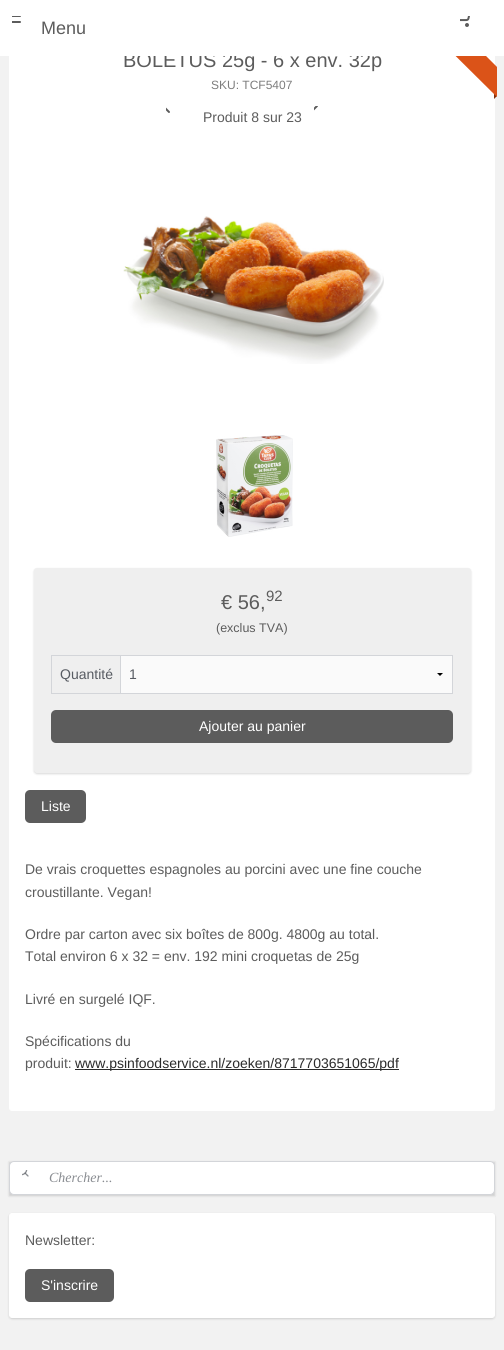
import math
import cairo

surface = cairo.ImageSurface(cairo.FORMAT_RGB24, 504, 1350)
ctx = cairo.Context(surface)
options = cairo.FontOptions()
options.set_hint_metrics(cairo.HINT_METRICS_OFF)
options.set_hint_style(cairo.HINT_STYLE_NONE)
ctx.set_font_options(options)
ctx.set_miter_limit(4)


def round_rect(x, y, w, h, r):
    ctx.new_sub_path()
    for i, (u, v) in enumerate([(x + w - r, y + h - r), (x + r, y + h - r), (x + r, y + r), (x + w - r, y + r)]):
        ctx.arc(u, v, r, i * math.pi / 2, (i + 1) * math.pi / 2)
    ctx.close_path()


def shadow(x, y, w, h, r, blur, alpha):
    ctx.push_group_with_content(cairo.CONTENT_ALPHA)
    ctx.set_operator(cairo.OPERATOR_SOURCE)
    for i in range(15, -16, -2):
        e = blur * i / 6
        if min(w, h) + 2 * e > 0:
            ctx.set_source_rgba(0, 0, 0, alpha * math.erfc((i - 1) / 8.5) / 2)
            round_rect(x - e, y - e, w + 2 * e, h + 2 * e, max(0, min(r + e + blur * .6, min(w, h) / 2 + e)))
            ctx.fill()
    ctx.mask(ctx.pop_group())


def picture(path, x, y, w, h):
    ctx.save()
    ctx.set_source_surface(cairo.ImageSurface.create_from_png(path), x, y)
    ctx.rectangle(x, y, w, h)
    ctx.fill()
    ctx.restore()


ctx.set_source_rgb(0.949, 0.949, 0.949)
ctx.paint()
ctx.set_source_rgb(1, 1, 1)
round_rect(9.5, -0.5, 485, 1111, 2.5)
ctx.fill_preserve()
ctx.set_line_width(1)
ctx.stroke()
ctx.select_font_face("Liberation Sans")
ctx.set_font_size(20)
ctx.set_source_rgb(0.361, 0.361, 0.361)
ctx.move_to(123, 67)
ctx.show_text("BOLETUS 25g - 6 x env. 32p")
ctx.set_source_rgb(0.498, 0.188, 0.055)
ctx.new_path()
ctx.move_to(494, 99)
ctx.line_to(494, 93)
ctx.line_to(497, 96)
ctx.close_path()
ctx.fill()
ctx.save()
ctx.rectangle(377, 0, 120, 117)
ctx.clip()
ctx.set_source_rgb(0.859, 0.325, 0.094)
ctx.new_path()
ctx.move_to(408, -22)
ctx.line_to(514, 84)
ctx.line_to(499, 99)
ctx.line_to(392, -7)
ctx.close_path()
ctx.fill()
ctx.restore()
ctx.set_source_rgb(1, 1, 1)
ctx.rectangle(0, 0, 504, 56)
ctx.fill()
picture("img1.png", 12, 16, 9, 7)
ctx.set_font_size(18)
ctx.set_source_rgb(0.361, 0.361, 0.361)
ctx.move_to(41, 34)
ctx.show_text("Menu")
picture("img2.png", 460, 16, 10, 11)
ctx.set_font_size(12)
ctx.set_source_rgb(0.49, 0.49, 0.49)
ctx.move_to(211, 89)
ctx.show_text("SKU: TCF5407")
picture("img3.png", 166, 107, 4, 6)
picture("img4.png", 314, 106, 4, 5)
ctx.set_font_size(14)
ctx.set_source_rgb(0.361, 0.361, 0.361)
ctx.move_to(203, 122)
ctx.show_text("Produit 8 sur 23")
picture("img5.png", 123, 216, 261, 148)
picture("img6.png", 216, 435, 77, 102)
ctx.set_source_rgb(0, 0, 0)
shadow(34, 569, 437, 205, 3, 1, 0.15)
ctx.set_source_rgb(0.937, 0.937, 0.937)
round_rect(34, 568, 437, 205, 3)
ctx.fill()
ctx.set_font_size(20)
ctx.set_source_rgb(0.361, 0.361, 0.361)
ctx.move_to(221, 609)
ctx.show_text("€ 56,")
ctx.set_font_size(15)
ctx.move_to(266, 601)
ctx.show_text("92")
ctx.set_font_size(12.5)
ctx.move_to(216, 632)
ctx.show_text("(exclus TVA)")
ctx.set_source_rgb(0.827, 0.835, 0.851)
ctx.rectangle(51, 655, 402, 1)
ctx.fill()
ctx.rectangle(452, 655, 1, 39)
ctx.fill()
ctx.rectangle(120, 656, 1, 38)
ctx.fill()
ctx.rectangle(51, 693, 402, 1)
ctx.fill()
ctx.rectangle(51, 655, 1, 39)
ctx.fill()
ctx.set_font_size(14)
ctx.set_source_rgb(0.341, 0.357, 0.384)
ctx.move_to(60, 679)
ctx.show_text("Quantité")
ctx.set_source_rgb(0.98, 0.98, 0.98)
ctx.rectangle(121, 656, 331, 37)
ctx.fill()
ctx.set_source_rgb(0, 0, 0)
ctx.new_path()
ctx.move_to(443, 673)
ctx.line_to(440, 676)
ctx.line_to(437, 673)
ctx.close_path()
ctx.fill()
ctx.set_source_rgb(0.341, 0.357, 0.384)
ctx.move_to(129, 679)
ctx.show_text("1")
ctx.set_source_rgb(0.361, 0.361, 0.361)
round_rect(51, 710, 402, 33, 5)
ctx.fill()
ctx.set_source_rgb(1, 1, 1)
ctx.move_to(199, 731)
ctx.show_text("Ajouter au panier")
ctx.set_source_rgb(0.361, 0.361, 0.361)
round_rect(25, 790, 61, 33, 5)
ctx.fill()
ctx.set_source_rgb(1, 1, 1)
ctx.move_to(41, 811)
ctx.show_text("Liste")
ctx.set_source_rgb(0.361, 0.361, 0.361)
ctx.move_to(25, 874)
ctx.show_text("De vrais croquettes espagnoles au porcini avec une fine couche")
ctx.move_to(25, 897)
ctx.show_text("croustillante. Vegan!")
ctx.move_to(25, 939)
ctx.show_text("Ordre par carton avec six boîtes de 800g. 4800g au total.")
ctx.move_to(25, 961)
ctx.show_text("Total environ 6 x 32 = env. 192 mini croquetas de 25g")
ctx.move_to(25, 1004)
ctx.show_text("Livré en surgelé IQF.")
ctx.move_to(25, 1046)
ctx.show_text("Spécifications du")
ctx.move_to(25, 1068)
ctx.show_text("produit:")
ctx.set_source_rgb(0.169, 0.169, 0.169)
ctx.rectangle(75, 1069, 324, 1)
ctx.fill()
ctx.move_to(75, 1068)
ctx.show_text("www.psinfoodservice.nl/zoeken/8717703651065/pdf")
ctx.set_source_rgb(0, 0, 0)
shadow(9, 1162, 486, 34, 0, 1, 0.15)
ctx.set_source_rgb(1, 1, 1)
round_rect(9.5, 1161.5, 485, 33, 4.5)
ctx.fill_preserve()
ctx.set_source_rgb(0.827, 0.835, 0.851)
ctx.stroke()
picture("img7.png", 22, 1170, 7, 7)
ctx.select_font_face("Liberation Serif", cairo.FONT_SLANT_ITALIC)
ctx.set_source_rgb(0.537, 0.549, 0.569)
ctx.move_to(49, 1182)
ctx.show_text("Chercher...")
ctx.set_source_rgb(0, 0, 0)
shadow(9, 1214, 486, 105, 3, 1, 0.15)
ctx.set_source_rgb(1, 1, 1)
round_rect(9.5, 1213.5, 485, 104, 2.5)
ctx.fill_preserve()
ctx.stroke()
ctx.select_font_face("Liberation Sans")
ctx.set_source_rgb(0.361, 0.361, 0.361)
ctx.move_to(25, 1245)
ctx.show_text("Newsletter:")
round_rect(25, 1269, 89, 33, 5)
ctx.fill()
ctx.set_source_rgb(1, 1, 1)
ctx.move_to(41, 1290)
ctx.show_text("S'inscrire")
surface.write_to_png("page.png")
